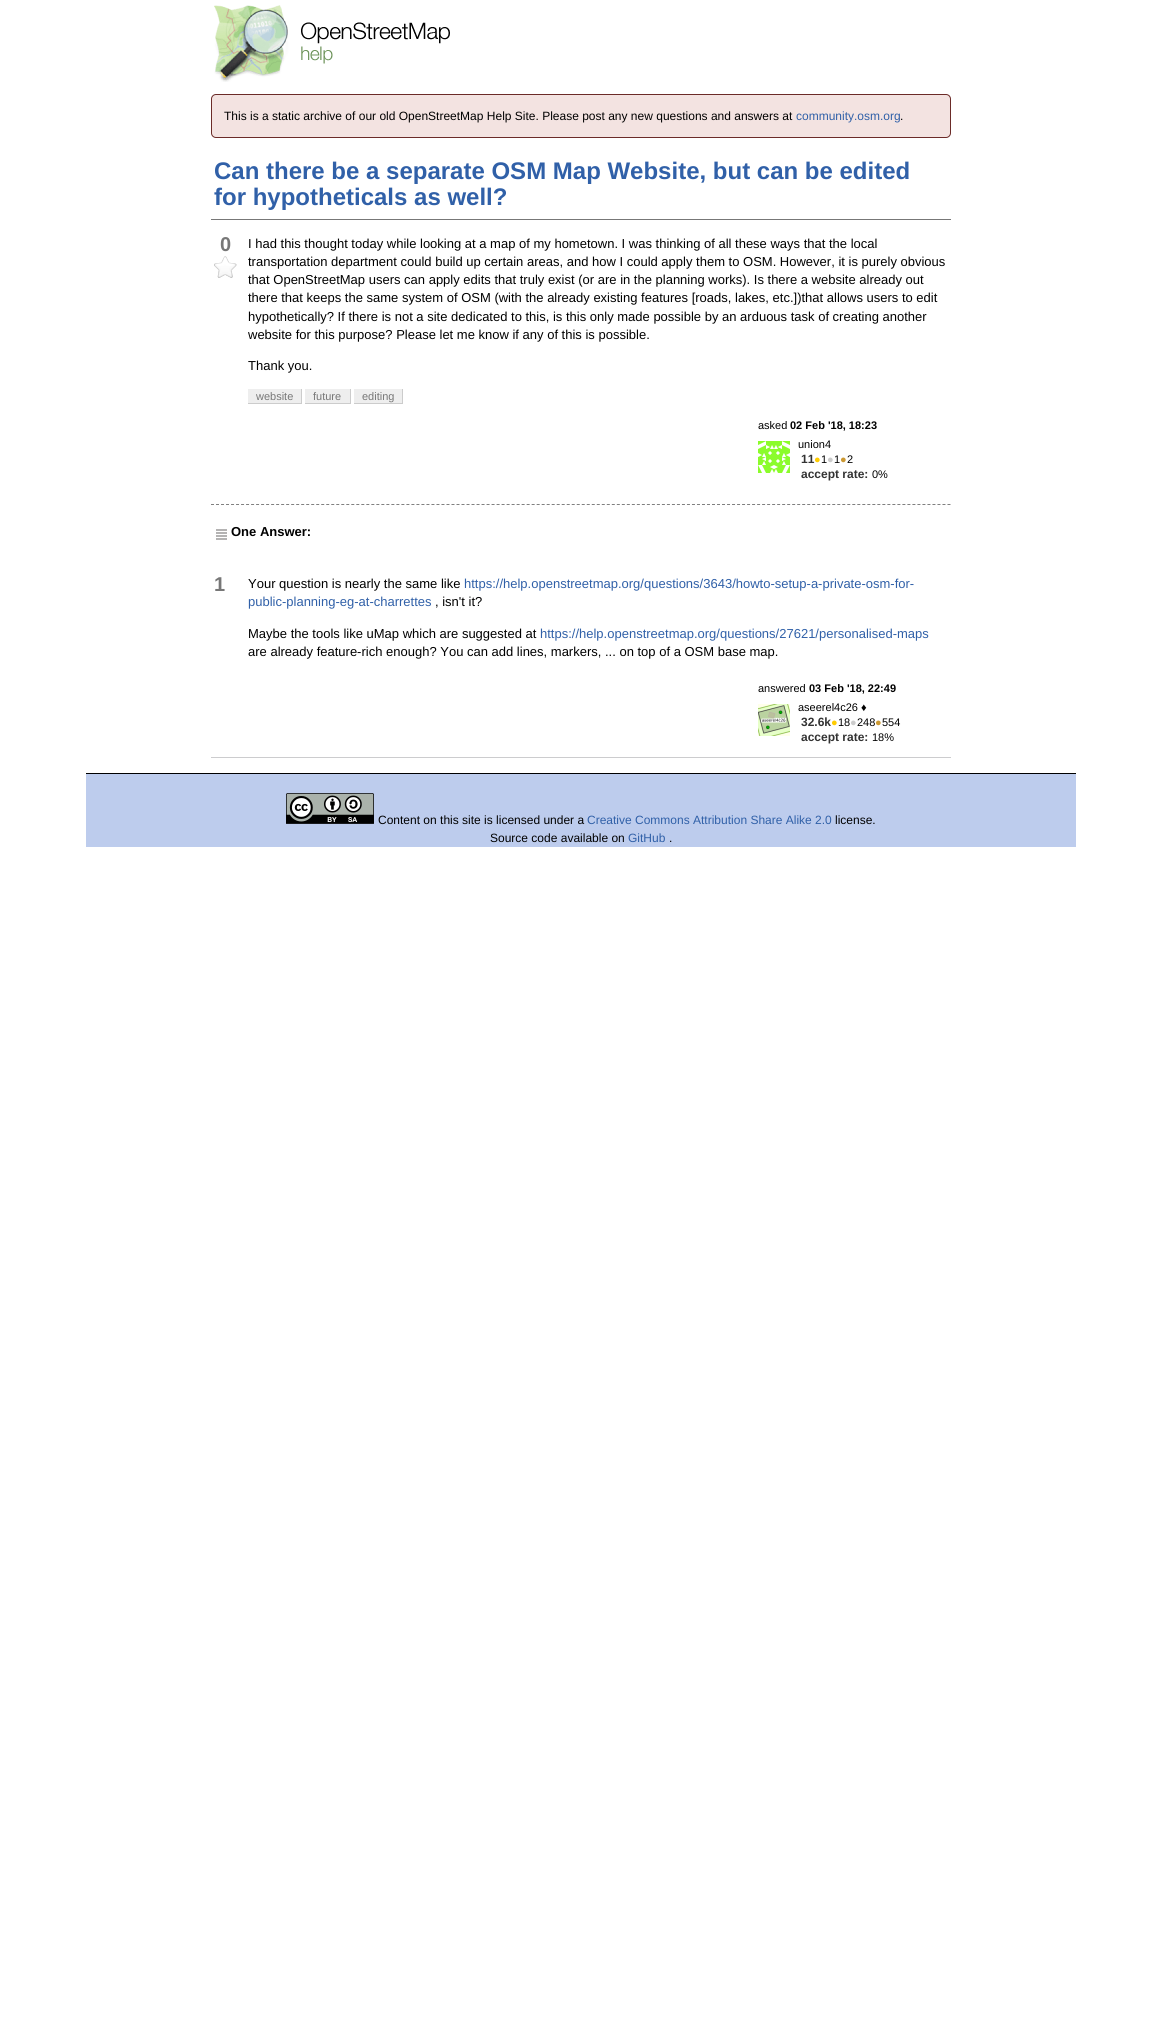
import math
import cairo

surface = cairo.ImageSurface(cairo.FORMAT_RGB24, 1162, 2028)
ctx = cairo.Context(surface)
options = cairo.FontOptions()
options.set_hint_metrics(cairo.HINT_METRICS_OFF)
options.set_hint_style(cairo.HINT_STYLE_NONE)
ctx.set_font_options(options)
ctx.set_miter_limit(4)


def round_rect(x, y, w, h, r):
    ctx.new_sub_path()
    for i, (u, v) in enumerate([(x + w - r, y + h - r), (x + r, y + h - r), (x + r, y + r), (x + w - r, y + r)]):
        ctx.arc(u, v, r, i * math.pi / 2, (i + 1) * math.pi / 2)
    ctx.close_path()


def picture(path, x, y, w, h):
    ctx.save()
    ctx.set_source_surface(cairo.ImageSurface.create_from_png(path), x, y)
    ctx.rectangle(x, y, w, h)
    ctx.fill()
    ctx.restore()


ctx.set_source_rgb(1, 1, 1)
ctx.paint()
picture("img1.png", 214, 5, 236, 77)
ctx.set_source_rgb(0.953, 0.89, 0.882)
round_rect(211.5, 94.5, 739, 43, 4.5)
ctx.fill_preserve()
ctx.set_source_rgb(0.42, 0.169, 0.157)
ctx.set_line_width(1)
ctx.stroke()
ctx.select_font_face("Liberation Sans")
ctx.set_font_size(12)
ctx.set_source_rgb(0, 0, 0)
ctx.move_to(224, 120)
ctx.show_text("This is a static archive of our old OpenStreetMap Help Site. Please post any new questions and answers at")
ctx.set_source_rgb(0.188, 0.376, 0.659)
ctx.move_to(796, 120)
ctx.show_text("community.osm.org")
ctx.set_source_rgb(0, 0, 0)
ctx.move_to(900, 120)
ctx.show_text(".")
ctx.set_source_rgb(0.467, 0.467, 0.467)
ctx.rectangle(211, 219, 740, 1)
ctx.fill()
ctx.select_font_face("Liberation Sans", cairo.FONT_SLANT_NORMAL, cairo.FONT_WEIGHT_BOLD)
ctx.set_font_size(24)
ctx.set_source_rgb(0.188, 0.376, 0.659)
ctx.move_to(214, 179)
ctx.show_text("Can there be a separate OSM Map Website, but can be edited")
ctx.move_to(214, 205)
ctx.show_text("for hypotheticals as well?")
ctx.set_font_size(20)
ctx.set_source_rgb(0.467, 0.467, 0.467)
ctx.move_to(220, 251)
ctx.show_text("0")
picture("img2.png", 214, 256, 23, 22)
ctx.select_font_face("Liberation Sans")
ctx.set_font_size(13)
ctx.set_source_rgb(0, 0, 0)
ctx.move_to(248, 248)
ctx.show_text("I had this thought today while looking at a map of my hometown. I was thinking of all these ways that the local")
ctx.move_to(248, 266)
ctx.show_text("transportation department could build up certain areas, and how I could apply them to OSM. However, it is purely obvious")
ctx.move_to(248, 284)
ctx.show_text("that OpenStreetMap users can apply edits that truly exist (or are in the planning works). Is there a website already out")
ctx.move_to(248, 302)
ctx.show_text("there that keeps the same system of OSM (with the already existing features [roads, lakes, etc.])that allows users to edit")
ctx.move_to(248, 321)
ctx.show_text("hypothetically? If there is not a site dedicated to this, is this only made possible by an arduous task of creating another")
ctx.move_to(248, 339)
ctx.show_text("website for this purpose? Please let me know if any of this is possible.")
ctx.move_to(248, 370)
ctx.show_text("Thank you.")
ctx.set_source_rgb(0.933, 0.933, 0.933)
ctx.rectangle(248, 389, 53, 14)
ctx.fill()
ctx.set_font_size(11)
ctx.set_source_rgb(0.467, 0.467, 0.467)
ctx.move_to(256, 400)
ctx.show_text("website")
ctx.set_source_rgb(0.8, 0.8, 0.8)
ctx.rectangle(301, 389, 1, 15)
ctx.fill()
ctx.rectangle(248, 403, 54, 1)
ctx.fill()
ctx.set_source_rgb(0.933, 0.933, 0.933)
ctx.rectangle(305, 389, 45, 14)
ctx.fill()
ctx.set_source_rgb(0.467, 0.467, 0.467)
ctx.move_to(313, 400)
ctx.show_text("future")
ctx.set_source_rgb(0.8, 0.8, 0.8)
ctx.rectangle(350, 389, 1, 15)
ctx.fill()
ctx.rectangle(305, 403, 46, 1)
ctx.fill()
ctx.set_source_rgb(0.933, 0.933, 0.933)
ctx.rectangle(354, 389, 48, 14)
ctx.fill()
ctx.set_source_rgb(0.467, 0.467, 0.467)
ctx.move_to(362, 400)
ctx.show_text("editing")
ctx.set_source_rgb(0.8, 0.8, 0.8)
ctx.rectangle(402, 389, 1, 15)
ctx.fill()
ctx.rectangle(354, 403, 49, 1)
ctx.fill()
ctx.set_source_rgb(0, 0, 0)
ctx.move_to(758, 429)
ctx.show_text("asked")
ctx.select_font_face("Liberation Sans", cairo.FONT_SLANT_NORMAL, cairo.FONT_WEIGHT_BOLD)
ctx.move_to(790, 429)
ctx.show_text("02 Feb '18, 18:23")
picture("img3.png", 758, 441, 32, 32)
ctx.select_font_face("Liberation Sans")
ctx.move_to(798, 448)
ctx.show_text("union4")
ctx.select_font_face("Liberation Sans", cairo.FONT_SLANT_NORMAL, cairo.FONT_WEIGHT_BOLD)
ctx.set_font_size(12)
ctx.set_source_rgb(0.2, 0.2, 0.2)
ctx.move_to(801, 463)
ctx.show_text("11")
ctx.select_font_face("Liberation Sans")
ctx.set_font_size(11)
ctx.set_source_rgb(1, 0.8, 0)
ctx.move_to(814, 463)
ctx.show_text("●")
ctx.set_source_rgb(0, 0, 0)
ctx.move_to(821, 463)
ctx.show_text("1")
ctx.set_source_rgb(0.8, 0.8, 0.8)
ctx.move_to(827, 463)
ctx.show_text("●")
ctx.set_source_rgb(0, 0, 0)
ctx.move_to(834, 463)
ctx.show_text("1")
ctx.set_source_rgb(0.8, 0.6, 0.2)
ctx.move_to(840, 463)
ctx.show_text("●")
ctx.set_source_rgb(0, 0, 0)
ctx.move_to(847, 463)
ctx.show_text("2")
ctx.select_font_face("Liberation Sans", cairo.FONT_SLANT_NORMAL, cairo.FONT_WEIGHT_BOLD)
ctx.set_font_size(12)
ctx.set_source_rgb(0.2, 0.2, 0.2)
ctx.move_to(801, 478)
ctx.show_text("accept rate:")
ctx.select_font_face("Liberation Sans")
ctx.set_font_size(11)
ctx.set_source_rgb(0, 0, 0)
ctx.move_to(872, 478)
ctx.show_text("0%")
ctx.new_path()
ctx.move_to(211, 504.5)
ctx.line_to(951, 504.5)
ctx.set_source_rgb(0.502, 0.502, 0.502)
ctx.set_dash([3, 2.01])
ctx.stroke()
picture("img4.png", 216, 529, 11, 11)
ctx.select_font_face("Liberation Sans", cairo.FONT_SLANT_NORMAL, cairo.FONT_WEIGHT_BOLD)
ctx.set_font_size(13)
ctx.set_source_rgb(0, 0, 0)
ctx.move_to(231, 536)
ctx.show_text("One Answer:")
ctx.set_source_rgb(0.8, 0.8, 0.808)
ctx.rectangle(211, 757, 740, 1)
ctx.fill()
ctx.set_font_size(20)
ctx.set_source_rgb(0.467, 0.467, 0.467)
ctx.move_to(214, 591)
ctx.show_text("1")
ctx.select_font_face("Liberation Sans")
ctx.set_font_size(13)
ctx.set_source_rgb(0, 0, 0)
ctx.move_to(248, 588)
ctx.show_text("Your question is nearly the same like")
ctx.set_source_rgb(0.188, 0.376, 0.659)
ctx.move_to(464, 588)
ctx.show_text("https://help.openstreetmap.org/questions/3643/howto-setup-a-private-osm-for-")
ctx.move_to(248, 606)
ctx.show_text("public-planning-eg-at-charrettes")
ctx.set_source_rgb(0, 0, 0)
ctx.move_to(435, 606)
ctx.show_text(", isn't it?")
ctx.move_to(248, 638)
ctx.show_text("Maybe the tools like uMap which are suggested at")
ctx.set_source_rgb(0.188, 0.376, 0.659)
ctx.move_to(540, 638)
ctx.show_text("https://help.openstreetmap.org/questions/27621/personalised-maps")
ctx.set_source_rgb(0, 0, 0)
ctx.move_to(248, 656)
ctx.show_text("are already feature-rich enough? You can add lines, markers, ... on top of a OSM base map.")
ctx.set_font_size(11)
ctx.move_to(758, 692)
ctx.show_text("answered")
ctx.select_font_face("Liberation Sans", cairo.FONT_SLANT_NORMAL, cairo.FONT_WEIGHT_BOLD)
ctx.move_to(809, 692)
ctx.show_text("03 Feb '18, 22:49")
picture("img5.png", 758, 704, 32, 32)
ctx.select_font_face("Liberation Sans")
ctx.move_to(798, 711)
ctx.show_text("aseerel4c26 ♦")
ctx.select_font_face("Liberation Sans", cairo.FONT_SLANT_NORMAL, cairo.FONT_WEIGHT_BOLD)
ctx.set_font_size(12)
ctx.set_source_rgb(0.2, 0.2, 0.2)
ctx.move_to(801, 726)
ctx.show_text("32.6k")
ctx.select_font_face("Liberation Sans")
ctx.set_font_size(11)
ctx.set_source_rgb(1, 0.8, 0)
ctx.move_to(831, 726)
ctx.show_text("●")
ctx.set_source_rgb(0, 0, 0)
ctx.move_to(838, 726)
ctx.show_text("18")
ctx.set_source_rgb(0.8, 0.8, 0.8)
ctx.move_to(850, 726)
ctx.show_text("●")
ctx.set_source_rgb(0, 0, 0)
ctx.move_to(857, 726)
ctx.show_text("248")
ctx.set_source_rgb(0.8, 0.6, 0.2)
ctx.move_to(875, 726)
ctx.show_text("●")
ctx.set_source_rgb(0, 0, 0)
ctx.move_to(882, 726)
ctx.show_text("554")
ctx.select_font_face("Liberation Sans", cairo.FONT_SLANT_NORMAL, cairo.FONT_WEIGHT_BOLD)
ctx.set_font_size(12)
ctx.set_source_rgb(0.2, 0.2, 0.2)
ctx.move_to(801, 741)
ctx.show_text("accept rate:")
ctx.select_font_face("Liberation Sans")
ctx.set_font_size(11)
ctx.set_source_rgb(0, 0, 0)
ctx.move_to(872, 741)
ctx.show_text("18%")
ctx.set_source_rgb(0.741, 0.8, 0.929)
ctx.rectangle(86, 774, 990, 73)
ctx.fill()
ctx.set_source_rgb(0, 0, 0)
ctx.rectangle(86, 773, 990, 1)
ctx.fill()
picture("img6.png", 286, 793, 88, 31)
ctx.set_font_size(12)
ctx.move_to(378, 824)
ctx.show_text("Content on this site is licensed under a")
ctx.set_source_rgb(0.188, 0.376, 0.659)
ctx.move_to(587, 824)
ctx.show_text("Creative Commons Attribution Share Alike 2.0")
ctx.set_source_rgb(0, 0, 0)
ctx.move_to(835, 824)
ctx.show_text("license.")
ctx.move_to(490, 842)
ctx.show_text("Source code available on")
ctx.set_source_rgb(0.188, 0.376, 0.659)
ctx.move_to(628, 842)
ctx.show_text("GitHub")
ctx.set_source_rgb(0, 0, 0)
ctx.move_to(669, 842)
ctx.show_text(".")
surface.write_to_png("page.png")
